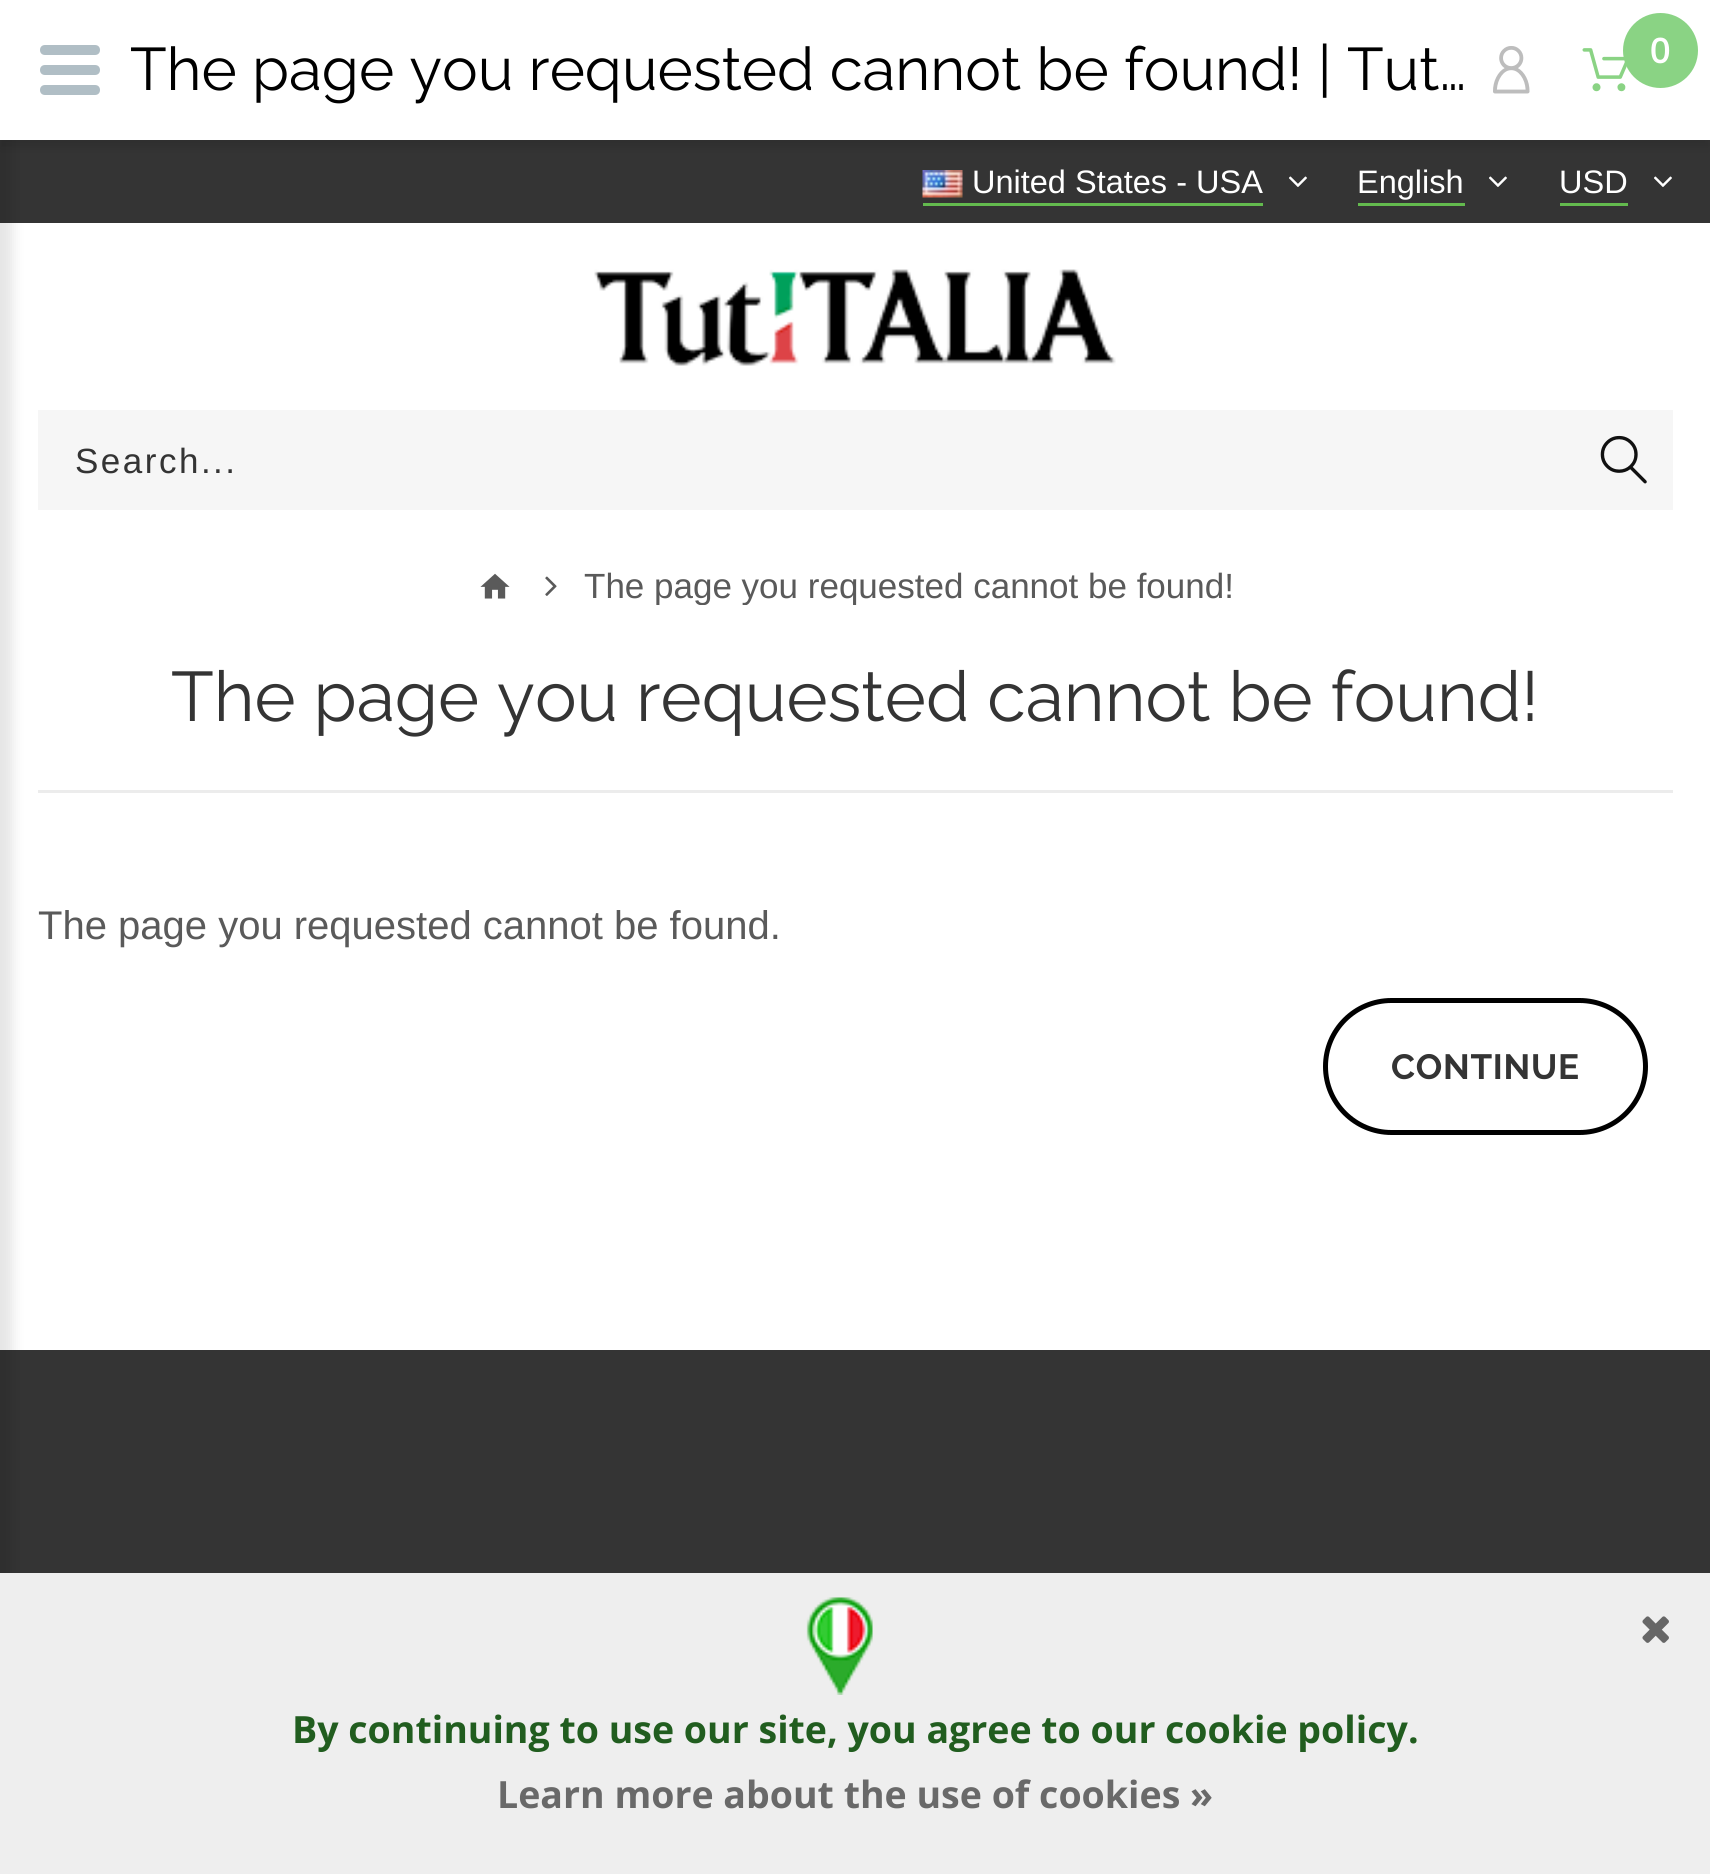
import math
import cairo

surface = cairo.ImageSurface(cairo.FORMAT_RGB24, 1710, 1874)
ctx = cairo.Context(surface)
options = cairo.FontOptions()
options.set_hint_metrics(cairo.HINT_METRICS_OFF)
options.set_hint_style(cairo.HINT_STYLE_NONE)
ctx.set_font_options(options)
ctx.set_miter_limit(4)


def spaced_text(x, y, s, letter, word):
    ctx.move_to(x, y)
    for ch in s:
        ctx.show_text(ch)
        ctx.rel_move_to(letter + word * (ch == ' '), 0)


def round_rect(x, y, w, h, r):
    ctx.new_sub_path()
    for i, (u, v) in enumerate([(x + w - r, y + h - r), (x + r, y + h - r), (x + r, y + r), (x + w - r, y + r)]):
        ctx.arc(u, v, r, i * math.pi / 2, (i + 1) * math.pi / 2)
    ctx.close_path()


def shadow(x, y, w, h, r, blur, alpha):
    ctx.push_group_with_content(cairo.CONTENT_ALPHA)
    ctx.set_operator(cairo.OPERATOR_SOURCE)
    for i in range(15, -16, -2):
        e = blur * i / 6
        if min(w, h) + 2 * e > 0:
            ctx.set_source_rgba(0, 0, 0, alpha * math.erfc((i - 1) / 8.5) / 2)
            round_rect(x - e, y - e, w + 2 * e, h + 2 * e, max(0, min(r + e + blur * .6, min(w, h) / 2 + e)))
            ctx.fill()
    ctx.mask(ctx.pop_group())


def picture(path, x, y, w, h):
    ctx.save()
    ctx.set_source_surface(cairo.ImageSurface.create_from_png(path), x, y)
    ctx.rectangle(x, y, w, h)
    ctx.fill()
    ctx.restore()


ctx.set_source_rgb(1, 1, 1)
ctx.paint()
ctx.set_source_rgb(0.204, 0.204, 0.204)
ctx.rectangle(0, 140, 1710, 83)
ctx.fill()
ctx.rectangle(0, 1350, 1710, 223)
ctx.fill()
ctx.set_source_rgb(0, 0, 0)
shadow(-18, -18, 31, 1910, 0, 6, 0.1)
shadow(0, 8, 1710, 140, 0, 4, 0.1)
ctx.set_source_rgb(1, 1, 1)
ctx.rectangle(0, 0, 1710, 140)
ctx.fill()
picture("img1.png", 1582, 48, 45, 44)
ctx.set_source_rgb(0.541, 0.827, 0.518)
ctx.arc(1660.5, 50.5, 37.5, 0, 2 * math.pi)
ctx.fill()
ctx.select_font_face("Arimo", cairo.FONT_SLANT_NORMAL, cairo.FONT_WEIGHT_BOLD)
ctx.set_font_size(35)
ctx.set_source_rgb(1, 1, 1)
ctx.move_to(1650, 63)
ctx.show_text("0")
picture("img2.png", 594, 269, 522, 97)
picture("img3.png", 1493, 46, 37, 48)
picture("img4.png", 922, 170, 41, 28)
ctx.select_font_face("Arimo")
ctx.set_font_size(32.5)
ctx.move_to(972, 193)
ctx.show_text("United States - USA")
ctx.set_source_rgb(0.388, 0.729, 0.306)
ctx.rectangle(923, 203, 340, 3)
ctx.fill()
picture("img5.png", 1289, 176, 18, 11)
ctx.set_source_rgb(1, 1, 1)
ctx.move_to(1357, 193)
ctx.show_text("English")
ctx.set_source_rgb(0.388, 0.729, 0.306)
ctx.rectangle(1358, 203, 107, 3)
ctx.fill()
picture("img5.png", 1489, 176, 18, 11)
ctx.set_source_rgb(1, 1, 1)
ctx.move_to(1559, 193)
ctx.show_text("USD")
ctx.set_source_rgb(0.388, 0.729, 0.306)
ctx.rectangle(1560, 203, 68, 3)
ctx.fill()
picture("img5.png", 1654, 176, 18, 11)
ctx.set_source_rgb(0.961, 0.961, 0.961)
ctx.rectangle(38, 410, 1635, 100)
ctx.fill()
ctx.set_font_size(35)
ctx.set_source_rgb(0.204, 0.204, 0.204)
spaced_text(75, 473, "Search...", 2.5, 0)
picture("img6.png", 1600, 435, 47, 49)
picture("img7.png", 480, 573, 30, 26)
picture("img8.png", 545, 576, 12, 20)
ctx.save()
ctx.rectangle(38, 563, 1635, 42)
ctx.clip()
ctx.set_source_rgb(0.353, 0.353, 0.353)
ctx.move_to(584, 598)
ctx.show_text("The page you requested cannot be found!")
ctx.restore()
ctx.select_font_face("Raleway")
ctx.set_font_size(70)
ctx.move_to(171, 721)
ctx.show_text("The page you requested cannot be found!")
ctx.set_source_rgb(0.922, 0.922, 0.922)
ctx.rectangle(38, 790, 1635, 3)
ctx.fill()
ctx.select_font_face("Arimo")
ctx.set_font_size(40)
ctx.set_source_rgb(0.353, 0.353, 0.353)
ctx.move_to(38, 939)
ctx.show_text("The page you requested cannot be found.")
round_rect(1325.5, 1000.5, 320, 132, 66)
ctx.set_source_rgb(0, 0, 0)
ctx.set_line_width(5)
ctx.stroke()
ctx.select_font_face("Raleway", cairo.FONT_SLANT_NORMAL, cairo.FONT_WEIGHT_BOLD)
ctx.set_font_size(35)
ctx.set_source_rgb(0.204, 0.204, 0.204)
spaced_text(1391, 1079, "CONTINUE", 0.75, 0)
ctx.set_source_rgb(0.933, 0.933, 0.933)
ctx.rectangle(0, 1573, 1710, 301)
ctx.fill()
picture("img9.png", 1642, 1616, 27, 27)
picture("img10.png", 806, 1597, 67, 98)
ctx.select_font_face("Open Sans", cairo.FONT_SLANT_NORMAL, cairo.FONT_WEIGHT_BOLD)
ctx.set_font_size(37.5)
ctx.set_source_rgb(0.129, 0.365, 0.122)
ctx.move_to(292, 1743)
ctx.show_text("By continuing to use our site, you agree to our")
ctx.move_to(1165, 1743)
ctx.show_text("cookie policy")
ctx.move_to(1408, 1743)
ctx.show_text(".")
ctx.set_source_rgb(0.412, 0.412, 0.412)
ctx.move_to(497, 1808)
ctx.show_text("Learn more about the use of cookies »")
ctx.set_source_rgb(0.69, 0.745, 0.773)
ctx.new_path()
ctx.move_to(95, 75)
ctx.line_to(45, 75)
ctx.curve_to(42, 75, 40, 73, 40, 70)
ctx.curve_to(40, 67, 42, 65, 45, 65)
ctx.line_to(95, 65)
ctx.curve_to(98, 65, 100, 67, 100, 70)
ctx.curve_to(100, 73, 98, 75, 95, 75)
ctx.close_path()
ctx.move_to(95, 95)
ctx.line_to(45, 95)
ctx.curve_to(42, 95, 40, 93, 40, 90)
ctx.curve_to(40, 87, 42, 85, 45, 85)
ctx.line_to(95, 85)
ctx.curve_to(98, 85, 100, 87, 100, 90)
ctx.curve_to(100, 93, 98, 95, 95, 95)
ctx.close_path()
ctx.move_to(95, 55)
ctx.line_to(45, 55)
ctx.curve_to(42, 55, 40, 53, 40, 50)
ctx.curve_to(40, 47, 42, 45, 45, 45)
ctx.line_to(95, 45)
ctx.curve_to(98, 45, 100, 47, 100, 50)
ctx.curve_to(100, 53, 98, 55, 95, 55)
ctx.close_path()
ctx.fill()
ctx.select_font_face("Raleway")
ctx.set_font_size(60)
ctx.set_source_rgb(0, 0, 0)
ctx.move_to(130, 90)
ctx.show_text("The page you requested cannot be found! | Tut…")
surface.write_to_png("page.png")
